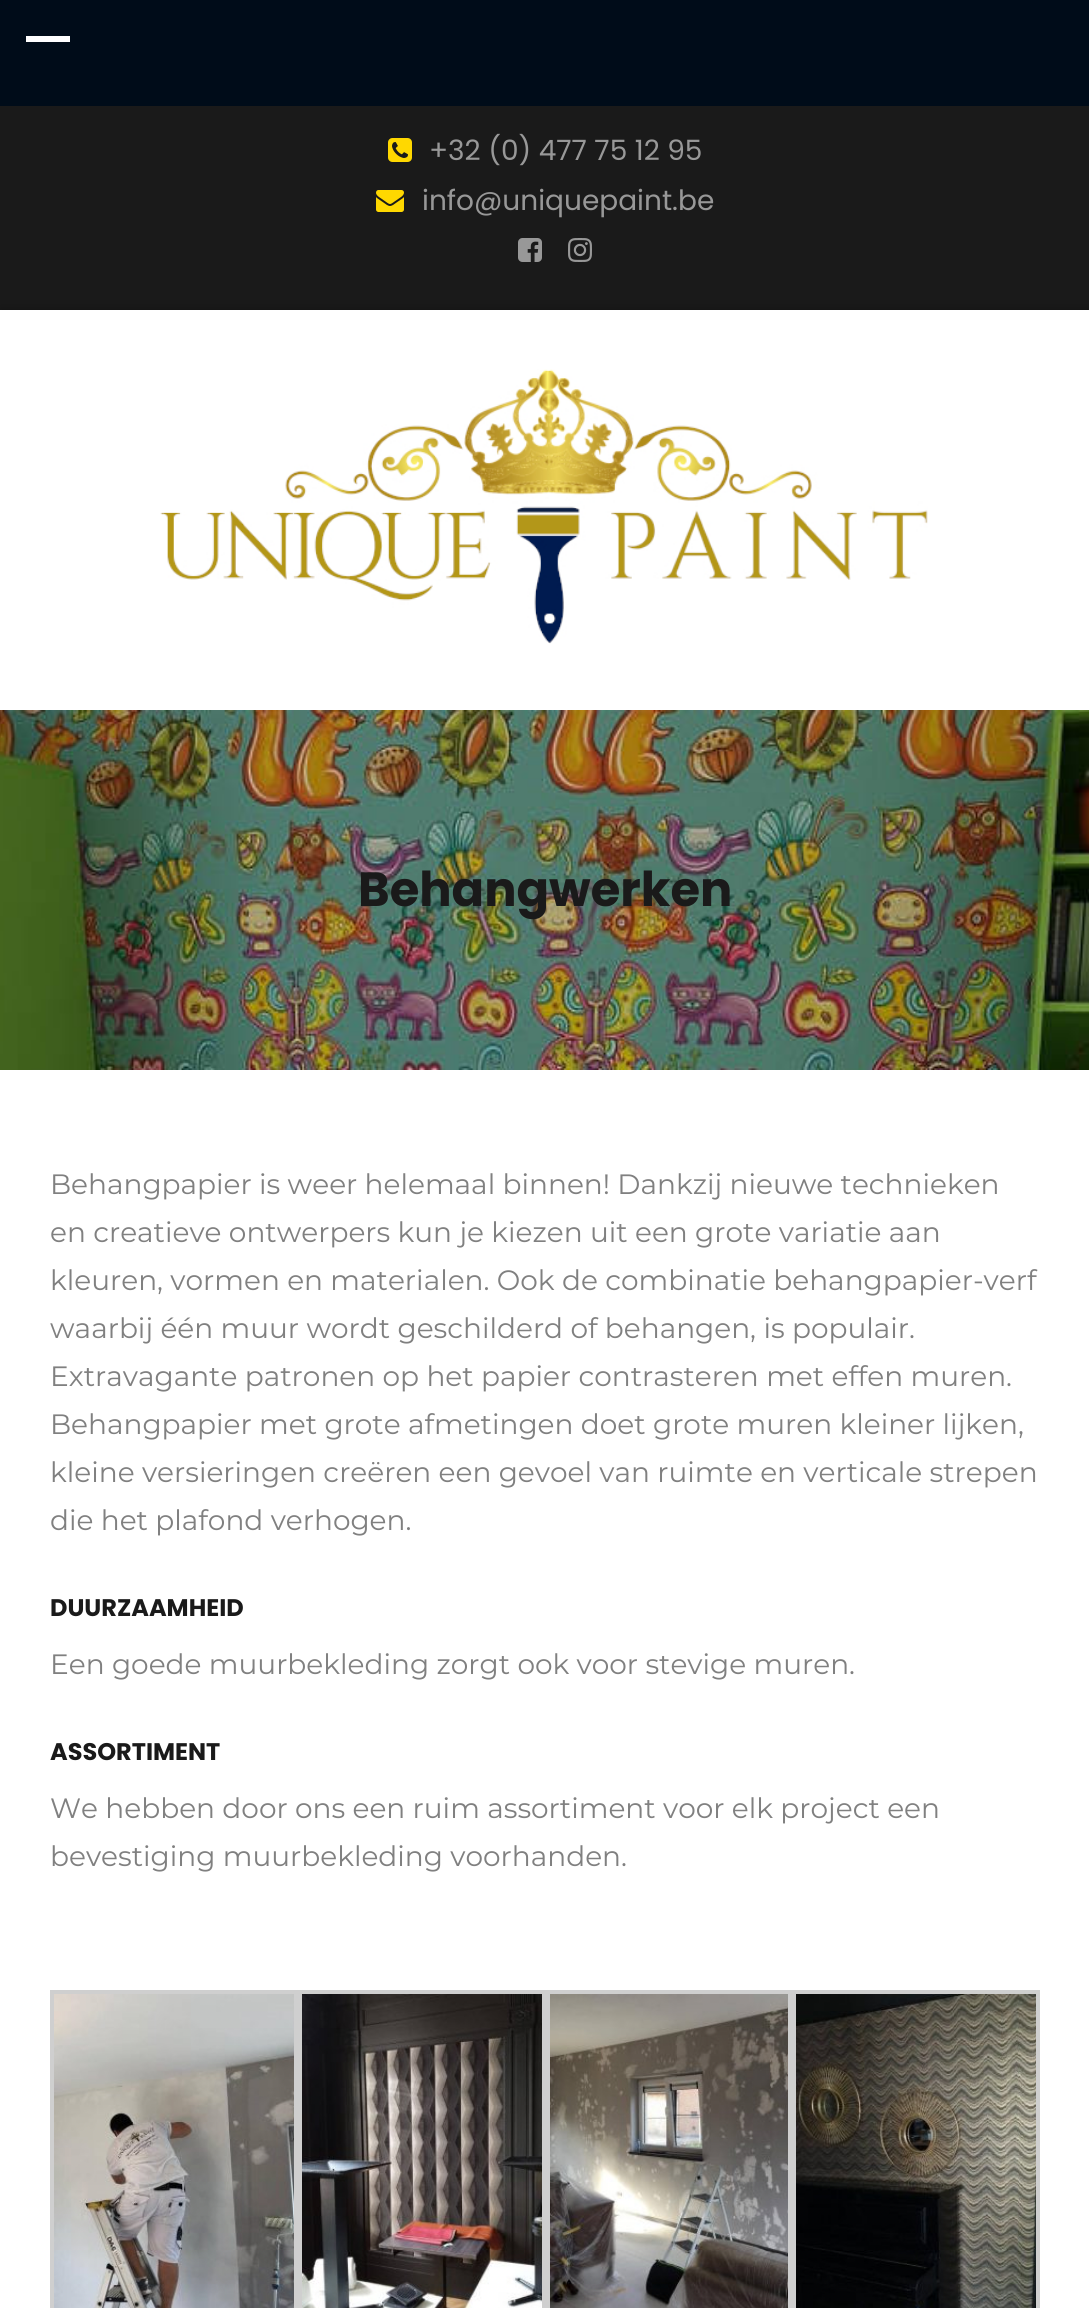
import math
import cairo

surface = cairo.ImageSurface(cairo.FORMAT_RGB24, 1089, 2308)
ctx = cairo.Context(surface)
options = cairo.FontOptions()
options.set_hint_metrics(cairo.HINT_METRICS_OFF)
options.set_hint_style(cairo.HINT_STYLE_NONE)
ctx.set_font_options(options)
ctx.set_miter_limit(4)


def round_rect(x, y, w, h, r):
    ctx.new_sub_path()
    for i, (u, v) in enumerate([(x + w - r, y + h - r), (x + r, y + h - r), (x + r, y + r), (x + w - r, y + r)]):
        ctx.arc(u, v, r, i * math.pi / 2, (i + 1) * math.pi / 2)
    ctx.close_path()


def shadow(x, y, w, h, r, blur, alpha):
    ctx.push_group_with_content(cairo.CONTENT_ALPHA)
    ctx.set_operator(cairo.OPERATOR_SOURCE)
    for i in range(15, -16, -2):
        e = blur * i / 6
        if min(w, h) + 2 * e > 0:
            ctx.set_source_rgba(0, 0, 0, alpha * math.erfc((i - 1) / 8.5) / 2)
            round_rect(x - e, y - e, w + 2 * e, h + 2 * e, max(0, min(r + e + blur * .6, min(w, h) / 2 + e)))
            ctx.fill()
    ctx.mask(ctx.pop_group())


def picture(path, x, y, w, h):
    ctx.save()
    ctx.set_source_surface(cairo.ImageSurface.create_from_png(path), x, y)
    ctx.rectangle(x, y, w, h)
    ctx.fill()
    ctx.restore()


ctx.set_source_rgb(1, 1, 1)
ctx.paint()
ctx.set_source_rgb(0, 0.047, 0.098)
ctx.rectangle(0, 0, 1089, 106)
ctx.fill()
ctx.set_source_rgb(1, 1, 1)
ctx.rectangle(26, 36, 44, 6)
ctx.fill()
ctx.set_source_rgb(0.102, 0.102, 0.102)
ctx.rectangle(0, 106, 1089, 204)
ctx.fill()
picture("img1.png", 388, 138, 24, 24)
ctx.select_font_face("Poppins")
ctx.set_font_size(28)
ctx.set_source_rgb(0.596, 0.596, 0.596)
ctx.move_to(429, 160)
ctx.show_text("+32 (0) 477 75 12 95")
picture("img2.png", 376, 190, 28, 22)
ctx.move_to(422, 210)
ctx.show_text("info@uniquepaint.be")
picture("img3.png", 518, 238, 24, 24)
picture("img4.png", 568, 238, 24, 24)
ctx.save()
ctx.rectangle(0, 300, 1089, 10)
ctx.clip()
ctx.set_source_rgb(0, 0, 0)
shadow(0, 310, 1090, 400, 0, 7, 0.3)
ctx.restore()
picture("img5.png", 160, 369, 768, 275)
picture("img6.png", 0, 710, 1089, 360)
ctx.select_font_face("Poppins", cairo.FONT_SLANT_NORMAL, cairo.FONT_WEIGHT_BOLD)
ctx.set_font_size(48)
ctx.set_source_rgb(0.102, 0.102, 0.102)
ctx.move_to(358, 906)
ctx.show_text("Behangwerken")
ctx.select_font_face("Montserrat")
ctx.set_font_size(28)
ctx.set_source_rgb(0.502, 0.502, 0.502)
ctx.move_to(50, 1194)
ctx.show_text("Behangpapier is weer helemaal binnen! Dankzij nieuwe technieken")
ctx.move_to(50, 1242)
ctx.show_text("en creatieve ontwerpers kun je kiezen uit een grote variatie aan")
ctx.move_to(50, 1290)
ctx.show_text("kleuren, vormen en materialen. Ook de combinatie behangpapier-verf")
ctx.move_to(50, 1338)
ctx.show_text("waarbij één muur wordt geschilderd of behangen, is populair.")
ctx.move_to(50, 1386)
ctx.show_text("Extravagante patronen op het papier contrasteren met effen muren.")
ctx.move_to(50, 1434)
ctx.show_text("Behangpapier met grote afmetingen doet grote muren kleiner lijken,")
ctx.move_to(50, 1482)
ctx.show_text("kleine versieringen creëren een gevoel van ruimte en verticale strepen")
ctx.move_to(50, 1530)
ctx.show_text("die het plafond verhogen.")
ctx.select_font_face("Poppins", cairo.FONT_SLANT_NORMAL, cairo.FONT_WEIGHT_BOLD)
ctx.set_font_size(24)
ctx.set_source_rgb(0.102, 0.102, 0.102)
ctx.move_to(50, 1616)
ctx.show_text("DUURZAAMHEID")
ctx.select_font_face("Montserrat")
ctx.set_font_size(28)
ctx.set_source_rgb(0.502, 0.502, 0.502)
ctx.move_to(50, 1674)
ctx.show_text("Een goede muurbekleding zorgt ook voor stevige muren.")
ctx.select_font_face("Poppins", cairo.FONT_SLANT_NORMAL, cairo.FONT_WEIGHT_BOLD)
ctx.set_font_size(24)
ctx.set_source_rgb(0.102, 0.102, 0.102)
ctx.move_to(50, 1760)
ctx.show_text("ASSORTIMENT")
ctx.select_font_face("Montserrat")
ctx.set_font_size(28)
ctx.set_source_rgb(0.502, 0.502, 0.502)
ctx.move_to(50, 1818)
ctx.show_text("We hebben door ons een ruim assortiment voor elk project een")
ctx.move_to(50, 1866)
ctx.show_text("bevestiging muurbekleding voorhanden.")
ctx.rectangle(52, 1992, 244, 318)
ctx.set_source_rgb(0.812, 0.812, 0.812)
ctx.set_line_width(4)
ctx.stroke()
picture("img7.png", 54, 1994, 240, 314)
ctx.rectangle(300, 1992, 244, 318)
ctx.stroke()
picture("img8.png", 302, 1994, 240, 314)
ctx.rectangle(548, 1992, 242, 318)
ctx.stroke()
picture("img9.png", 550, 1994, 238, 314)
ctx.rectangle(794, 1992, 244, 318)
ctx.stroke()
picture("img10.png", 796, 1994, 240, 314)
surface.write_to_png("page.png")
